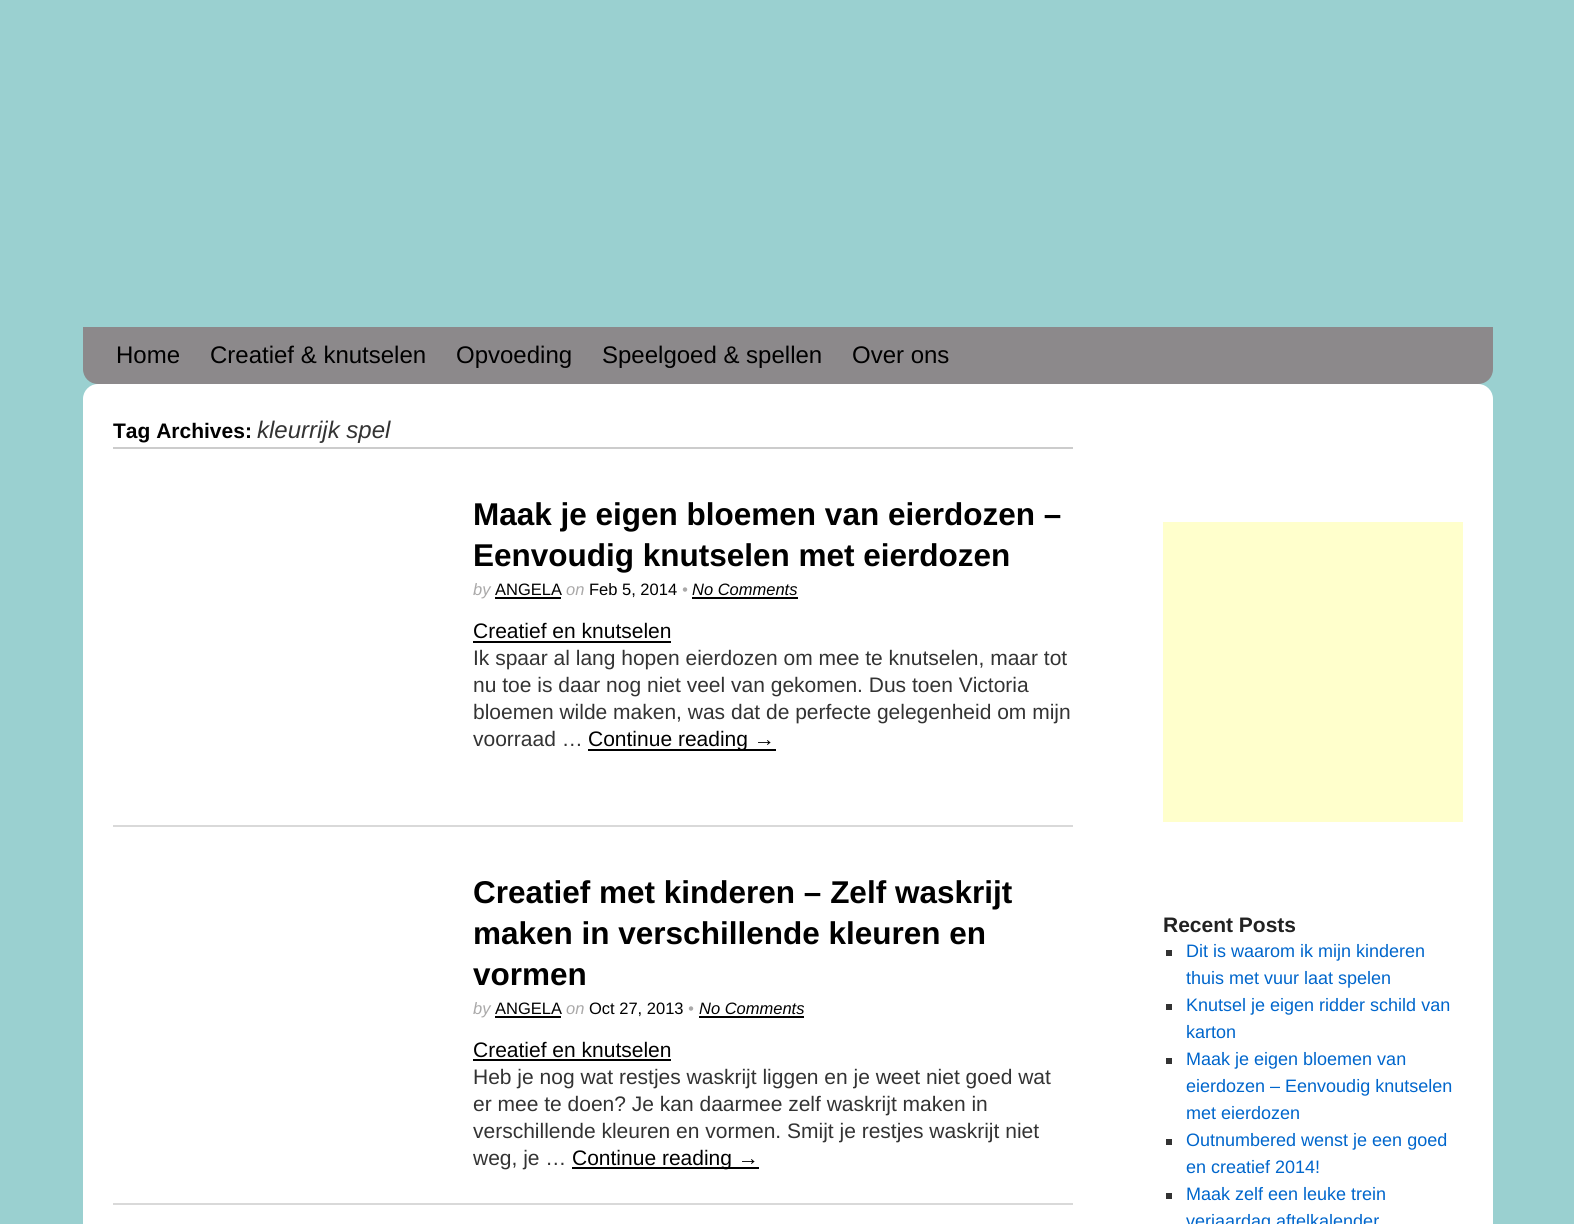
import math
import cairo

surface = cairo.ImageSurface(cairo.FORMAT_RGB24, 1574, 1224)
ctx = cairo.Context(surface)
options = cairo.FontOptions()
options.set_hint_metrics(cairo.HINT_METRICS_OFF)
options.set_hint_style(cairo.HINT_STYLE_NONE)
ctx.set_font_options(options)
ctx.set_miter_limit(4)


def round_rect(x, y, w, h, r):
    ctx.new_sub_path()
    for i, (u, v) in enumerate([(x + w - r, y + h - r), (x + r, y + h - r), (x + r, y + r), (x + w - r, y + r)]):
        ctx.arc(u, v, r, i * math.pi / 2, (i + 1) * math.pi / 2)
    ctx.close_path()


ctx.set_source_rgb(0.604, 0.816, 0.816)
ctx.paint()
ctx.set_source_rgb(0.549, 0.537, 0.545)
ctx.new_path()
ctx.move_to(83, 327)
ctx.line_to(1493, 327)
ctx.line_to(1493, 369)
ctx.curve_to(1493, 377.5, 1486.5, 384, 1478, 384)
ctx.line_to(98, 384)
ctx.curve_to(89.5, 384, 83, 377.5, 83, 369)
ctx.close_path()
ctx.fill()
ctx.select_font_face("Liberation Sans")
ctx.set_font_size(24)
ctx.set_source_rgb(0, 0, 0)
ctx.move_to(116, 363)
ctx.show_text("Home")
ctx.move_to(210, 363)
ctx.show_text("Creatief & knutselen")
ctx.move_to(456, 363)
ctx.show_text("Opvoeding")
ctx.move_to(602, 363)
ctx.show_text("Speelgoed & spellen")
ctx.move_to(852, 363)
ctx.show_text("Over ons")
ctx.set_source_rgb(1, 1, 1)
round_rect(83, 384, 1410, 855, 15)
ctx.fill()
ctx.set_source_rgb(0.8, 0.8, 0.8)
ctx.rectangle(113, 447, 960, 2)
ctx.fill()
ctx.select_font_face("Liberation Sans", cairo.FONT_SLANT_NORMAL, cairo.FONT_WEIGHT_BOLD)
ctx.set_font_size(21)
ctx.set_source_rgb(0, 0, 0)
ctx.move_to(113, 438)
ctx.show_text("Tag Archives:")
ctx.select_font_face("Liberation Sans", cairo.FONT_SLANT_ITALIC)
ctx.set_font_size(24)
ctx.set_source_rgb(0.2, 0.2, 0.2)
ctx.move_to(257, 438)
ctx.show_text("kleurrijk spel")
ctx.set_source_rgb(0.851, 0.851, 0.851)
ctx.rectangle(113, 825, 960, 2)
ctx.fill()
ctx.select_font_face("Liberation Sans", cairo.FONT_SLANT_NORMAL, cairo.FONT_WEIGHT_BOLD)
ctx.set_font_size(31.5)
ctx.set_source_rgb(0, 0, 0)
ctx.move_to(473, 525)
ctx.show_text("Maak je eigen bloemen van eierdozen –")
ctx.move_to(473, 566)
ctx.show_text("Eenvoudig knutselen met eierdozen")
ctx.select_font_face("Liberation Sans", cairo.FONT_SLANT_ITALIC)
ctx.set_font_size(16.5)
ctx.set_source_rgb(0.667, 0.663, 0.663)
ctx.move_to(473, 595)
ctx.show_text("by")
ctx.select_font_face("Liberation Sans")
ctx.set_source_rgb(0, 0, 0)
ctx.move_to(495, 595)
ctx.show_text("ANGELA")
ctx.rectangle(495, 597, 66, 2)
ctx.fill()
ctx.select_font_face("Liberation Sans", cairo.FONT_SLANT_ITALIC)
ctx.set_source_rgb(0.667, 0.663, 0.663)
ctx.move_to(566, 595)
ctx.show_text("on")
ctx.select_font_face("Liberation Sans")
ctx.set_source_rgb(0, 0, 0)
ctx.move_to(589, 595)
ctx.show_text("Feb 5, 2014")
ctx.select_font_face("Liberation Sans", cairo.FONT_SLANT_ITALIC)
ctx.set_source_rgb(0.667, 0.663, 0.663)
ctx.move_to(682, 595)
ctx.show_text("•")
ctx.set_source_rgb(0, 0, 0)
ctx.move_to(692, 595)
ctx.show_text("No Comments")
ctx.rectangle(692, 597, 106, 2)
ctx.fill()
ctx.select_font_face("Liberation Sans")
ctx.set_font_size(21)
ctx.move_to(473, 638)
ctx.show_text("Creatief en knutselen")
ctx.rectangle(473, 641, 198, 2)
ctx.fill()
ctx.set_source_rgb(0.2, 0.2, 0.2)
ctx.move_to(473, 665)
ctx.show_text("Ik spaar al lang hopen eierdozen om mee te knutselen, maar tot")
ctx.move_to(473, 692)
ctx.show_text("nu toe is daar nog niet veel van gekomen. Dus toen Victoria")
ctx.move_to(473, 719)
ctx.show_text("bloemen wilde maken, was dat de perfecte gelegenheid om mijn")
ctx.move_to(473, 746)
ctx.show_text("voorraad …")
ctx.set_source_rgb(0, 0, 0)
ctx.rectangle(588, 749, 188, 2)
ctx.fill()
ctx.move_to(588, 746)
ctx.show_text("Continue reading →")
ctx.set_source_rgb(0.851, 0.851, 0.851)
ctx.rectangle(113, 1203, 960, 2)
ctx.fill()
ctx.select_font_face("Liberation Sans", cairo.FONT_SLANT_NORMAL, cairo.FONT_WEIGHT_BOLD)
ctx.set_font_size(31.5)
ctx.set_source_rgb(0, 0, 0)
ctx.move_to(473, 903)
ctx.show_text("Creatief met kinderen – Zelf waskrijt")
ctx.move_to(473, 944)
ctx.show_text("maken in verschillende kleuren en")
ctx.move_to(473, 985)
ctx.show_text("vormen")
ctx.select_font_face("Liberation Sans", cairo.FONT_SLANT_ITALIC)
ctx.set_font_size(16.5)
ctx.set_source_rgb(0.667, 0.663, 0.663)
ctx.move_to(473, 1014)
ctx.show_text("by")
ctx.select_font_face("Liberation Sans")
ctx.set_source_rgb(0, 0, 0)
ctx.move_to(495, 1014)
ctx.show_text("ANGELA")
ctx.rectangle(495, 1016, 66, 2)
ctx.fill()
ctx.select_font_face("Liberation Sans", cairo.FONT_SLANT_ITALIC)
ctx.set_source_rgb(0.667, 0.663, 0.663)
ctx.move_to(566, 1014)
ctx.show_text("on")
ctx.select_font_face("Liberation Sans")
ctx.set_source_rgb(0, 0, 0)
ctx.move_to(589, 1014)
ctx.show_text("Oct 27, 2013")
ctx.select_font_face("Liberation Sans", cairo.FONT_SLANT_ITALIC)
ctx.set_source_rgb(0.667, 0.663, 0.663)
ctx.move_to(688, 1014)
ctx.show_text("•")
ctx.set_source_rgb(0, 0, 0)
ctx.move_to(699, 1014)
ctx.show_text("No Comments")
ctx.rectangle(699, 1016, 105, 2)
ctx.fill()
ctx.select_font_face("Liberation Sans")
ctx.set_font_size(21)
ctx.move_to(473, 1057)
ctx.show_text("Creatief en knutselen")
ctx.rectangle(473, 1059, 198, 2)
ctx.fill()
ctx.set_source_rgb(0.2, 0.2, 0.2)
ctx.move_to(473, 1084)
ctx.show_text("Heb je nog wat restjes waskrijt liggen en je weet niet goed wat")
ctx.move_to(473, 1111)
ctx.show_text("er mee te doen? Je kan daarmee zelf waskrijt maken in")
ctx.move_to(473, 1138)
ctx.show_text("verschillende kleuren en vormen. Smijt je restjes waskrijt niet")
ctx.move_to(473, 1165)
ctx.show_text("weg, je …")
ctx.set_source_rgb(0, 0, 0)
ctx.rectangle(572, 1167, 187, 2)
ctx.fill()
ctx.move_to(572, 1165)
ctx.show_text("Continue reading →")
ctx.set_source_rgb(1, 1, 0.8)
ctx.rectangle(1163, 522, 300, 300)
ctx.fill()
ctx.select_font_face("Liberation Sans", cairo.FONT_SLANT_NORMAL, cairo.FONT_WEIGHT_BOLD)
ctx.set_source_rgb(0.133, 0.133, 0.133)
ctx.move_to(1163, 932)
ctx.show_text("Recent Posts")
ctx.set_source_rgb(0.2, 0.2, 0.2)
ctx.rectangle(1166, 950, 6, 6)
ctx.fill()
ctx.select_font_face("Liberation Sans")
ctx.set_font_size(18)
ctx.set_source_rgb(0, 0.4, 0.8)
ctx.move_to(1186, 957)
ctx.show_text("Dit is waarom ik mijn kinderen")
ctx.move_to(1186, 984)
ctx.show_text("thuis met vuur laat spelen")
ctx.set_source_rgb(0.2, 0.2, 0.2)
ctx.rectangle(1166, 1004, 6, 6)
ctx.fill()
ctx.set_source_rgb(0, 0.4, 0.8)
ctx.move_to(1186, 1011)
ctx.show_text("Knutsel je eigen ridder schild van")
ctx.move_to(1186, 1038)
ctx.show_text("karton")
ctx.set_source_rgb(0.2, 0.2, 0.2)
ctx.rectangle(1166, 1058, 6, 6)
ctx.fill()
ctx.set_source_rgb(0, 0.4, 0.8)
ctx.move_to(1186, 1065)
ctx.show_text("Maak je eigen bloemen van")
ctx.move_to(1186, 1092)
ctx.show_text("eierdozen – Eenvoudig knutselen")
ctx.move_to(1186, 1119)
ctx.show_text("met eierdozen")
ctx.set_source_rgb(0.2, 0.2, 0.2)
ctx.rectangle(1166, 1139, 6, 6)
ctx.fill()
ctx.set_source_rgb(0, 0.4, 0.8)
ctx.move_to(1186, 1146)
ctx.show_text("Outnumbered wenst je een goed")
ctx.move_to(1186, 1173)
ctx.show_text("en creatief 2014!")
ctx.set_source_rgb(0.2, 0.2, 0.2)
ctx.rectangle(1166, 1193, 6, 6)
ctx.fill()
ctx.set_source_rgb(0, 0.4, 0.8)
ctx.move_to(1186, 1200)
ctx.show_text("Maak zelf een leuke trein")
ctx.move_to(1186, 1227)
ctx.show_text("verjaardag aftelkalender")
surface.write_to_png("page.png")
